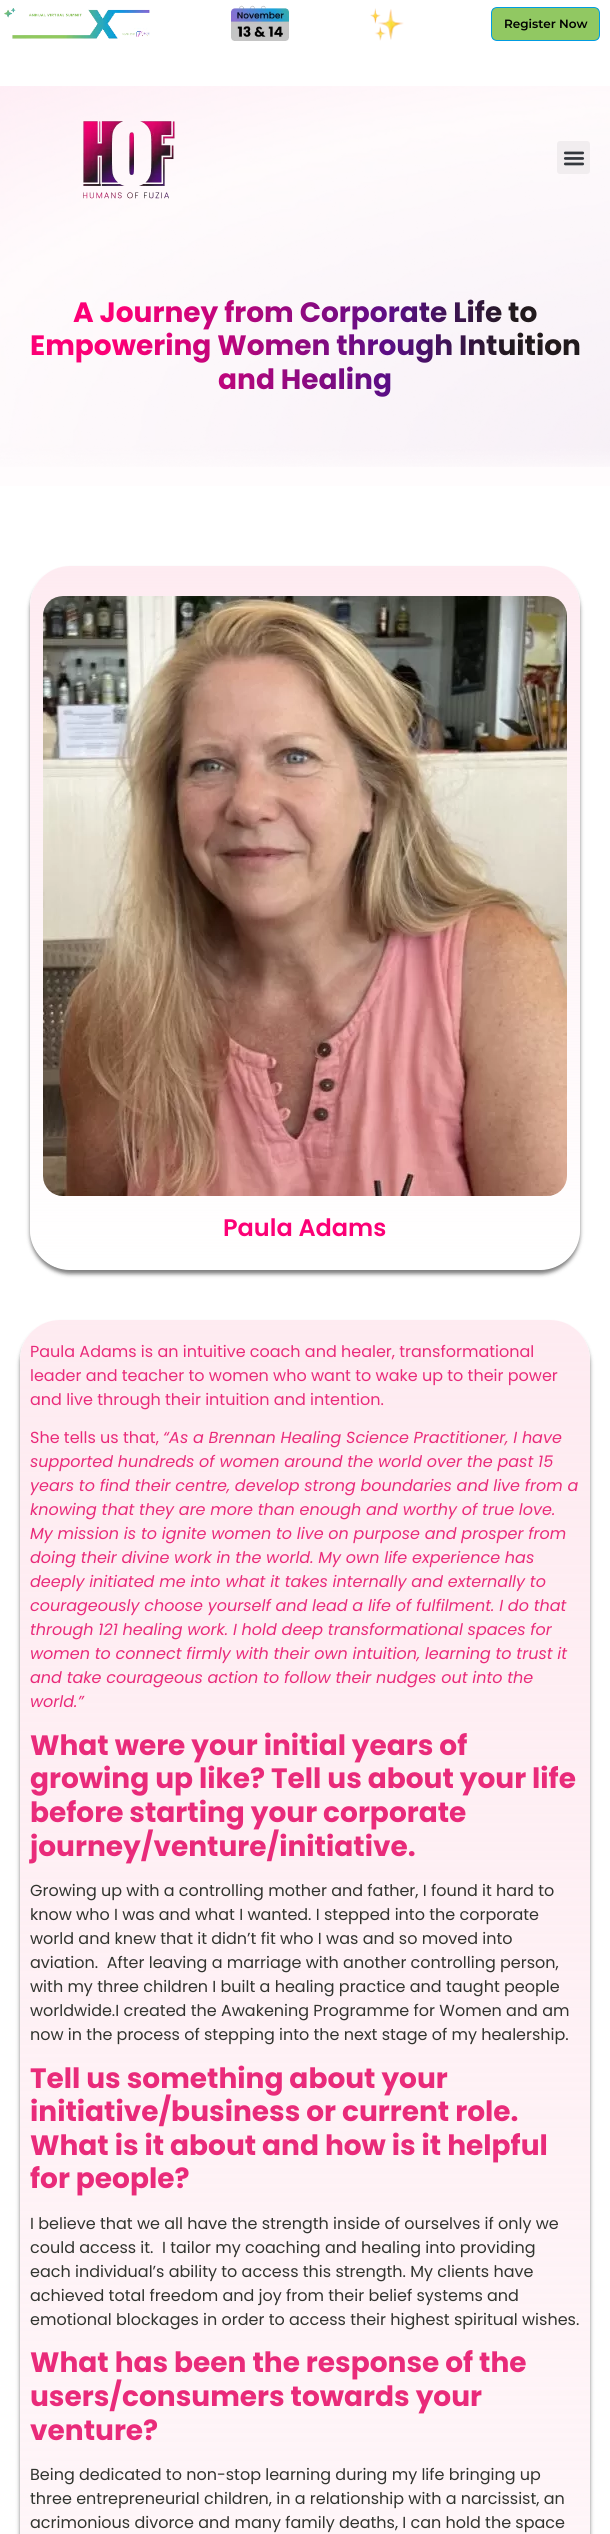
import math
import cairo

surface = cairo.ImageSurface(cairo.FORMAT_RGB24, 610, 2534)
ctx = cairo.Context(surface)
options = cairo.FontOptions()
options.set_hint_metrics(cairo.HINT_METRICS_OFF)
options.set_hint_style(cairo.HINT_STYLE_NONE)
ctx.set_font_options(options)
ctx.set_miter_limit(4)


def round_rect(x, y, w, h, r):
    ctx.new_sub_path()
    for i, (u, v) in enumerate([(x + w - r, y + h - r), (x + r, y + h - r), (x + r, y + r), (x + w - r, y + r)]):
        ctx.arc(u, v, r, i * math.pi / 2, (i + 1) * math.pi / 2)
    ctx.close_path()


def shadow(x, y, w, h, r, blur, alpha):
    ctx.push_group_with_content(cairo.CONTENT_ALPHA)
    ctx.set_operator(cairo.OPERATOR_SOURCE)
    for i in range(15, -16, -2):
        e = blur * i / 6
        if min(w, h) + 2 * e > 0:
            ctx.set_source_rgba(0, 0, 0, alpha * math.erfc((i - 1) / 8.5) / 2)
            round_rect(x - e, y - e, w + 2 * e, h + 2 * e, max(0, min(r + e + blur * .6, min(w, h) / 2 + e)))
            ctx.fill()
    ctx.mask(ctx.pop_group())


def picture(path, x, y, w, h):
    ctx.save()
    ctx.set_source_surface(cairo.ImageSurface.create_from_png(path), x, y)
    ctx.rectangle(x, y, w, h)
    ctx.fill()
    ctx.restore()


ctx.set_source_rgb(1, 1, 1)
ctx.paint()
picture("img1.png", 4, 8, 146, 31)
picture("img2.png", 231, 5, 58, 36)
picture("img3.png", 370, 8, 34, 33)
ctx.save()
round_rect(491, 7, 109, 34, 6)
ctx.clip()
gradient = cairo.LinearGradient(491, 20, 600, 28)
gradient.add_color_stop_rgba(0, 0.153, 0.553, 0.871, 1)
gradient.add_color_stop_rgba(0, 0.569, 0.784, 0.384, 1)
ctx.set_source(gradient)
ctx.rectangle(492, 8, 107, 32)
ctx.fill()
ctx.restore()
round_rect(491.5, 7.5, 108, 33, 5.5)
ctx.set_source_rgb(0, 0.612, 0.882)
ctx.set_line_width(1)
ctx.stroke()
ctx.select_font_face("Montserrat SemiBold")
ctx.set_font_size(12)
ctx.set_source_rgb(0, 0, 0)
ctx.move_to(504, 28)
ctx.show_text("Register Now")
ctx.set_source_rgb(1, 0.988, 0.992)
ctx.rectangle(0, 86, 610, 400)
ctx.fill()
picture("img6.png", 0, 86, 610, 381)
picture("img4.png", 83, 121, 92, 78)
ctx.set_source_rgb(0.945, 0.929, 0.937)
round_rect(557, 141, 33, 33, 3)
ctx.fill()
picture("img5.png", 563, 151, 22, 15)
ctx.select_font_face("Poppins", cairo.FONT_SLANT_NORMAL, cairo.FONT_WEIGHT_BOLD)
ctx.set_font_size(28)
gradient = cairo.LinearGradient(18, 329, 592, 363)
gradient.add_color_stop_rgba(0.18, 0.988, 0, 0.463, 1)
gradient.add_color_stop_rgba(0.65, 0.349, 0.055, 0.522, 1)
gradient.add_color_stop_rgba(0.86, 0.129, 0.102, 0.114, 1)
ctx.set_source(gradient)
ctx.move_to(73, 322)
ctx.show_text("A Journey from Corporate Life to")
ctx.move_to(30, 355)
ctx.show_text("Empowering Women through Intuition")
ctx.move_to(218, 389)
ctx.show_text("and Healing")
ctx.save()
ctx.set_fill_rule(cairo.FILL_RULE_EVEN_ODD)
ctx.new_path()
ctx.move_to(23, 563)
ctx.line_to(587, 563)
ctx.line_to(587, 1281)
ctx.line_to(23, 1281)
ctx.close_path()
ctx.move_to(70, 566)
ctx.line_to(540, 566)
ctx.curve_to(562, 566, 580, 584, 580, 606)
ctx.line_to(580, 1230)
ctx.curve_to(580, 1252, 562, 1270, 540, 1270)
ctx.line_to(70, 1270)
ctx.curve_to(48, 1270, 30, 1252, 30, 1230)
ctx.line_to(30, 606)
ctx.curve_to(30, 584, 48, 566, 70, 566)
ctx.close_path()
ctx.clip()
ctx.set_source_rgb(0, 0, 0)
shadow(30, 570, 550, 704, 40, 2, 0.5)
ctx.restore()
gradient = cairo.LinearGradient(305, 566, 305, 1270)
gradient.add_color_stop_rgba(0, 0.996, 0.922, 0.945, 1)
gradient.add_color_stop_rgba(1, 0.996, 0.922, 0.945, 0)
ctx.set_source(gradient)
round_rect(30, 566, 550, 704, 40)
ctx.fill()
picture("img7.png", 43, 596, 524, 600)
ctx.select_font_face("Poppins SemiBold")
ctx.set_font_size(24)
ctx.set_source_rgb(0.988, 0, 0.463)
ctx.move_to(223, 1236)
ctx.show_text("Paula Adams")
ctx.save()
ctx.set_fill_rule(cairo.FILL_RULE_EVEN_ODD)
ctx.new_path()
ctx.move_to(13, 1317)
ctx.line_to(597, 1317)
ctx.line_to(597, 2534)
ctx.line_to(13, 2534)
ctx.close_path()
ctx.move_to(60, 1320)
ctx.line_to(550, 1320)
ctx.curve_to(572, 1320, 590, 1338, 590, 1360)
ctx.line_to(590, 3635)
ctx.curve_to(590, 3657, 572, 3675, 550, 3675)
ctx.line_to(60, 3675)
ctx.curve_to(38, 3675, 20, 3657, 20, 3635)
ctx.line_to(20, 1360)
ctx.curve_to(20, 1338, 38, 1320, 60, 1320)
ctx.close_path()
ctx.clip()
ctx.set_source_rgb(0, 0, 0)
shadow(20, 1324, 570, 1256, 40, 2, 0.5)
ctx.restore()
gradient = cairo.LinearGradient(305, 1320, 305, 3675)
gradient.add_color_stop_rgba(0, 0.996, 0.922, 0.945, 1)
gradient.add_color_stop_rgba(1, 0.996, 0.922, 0.945, 0)
ctx.set_source(gradient)
round_rect(20, 1320, 570, 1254, 40)
ctx.fill()
ctx.select_font_face("Poppins")
ctx.set_font_size(16)
ctx.set_source_rgb(0.914, 0.169, 0.478)
ctx.move_to(30, 1357)
ctx.show_text("Paula Adams is an intuitive coach and healer, transformational")
ctx.move_to(30, 1381)
ctx.show_text("leader and teacher to women who want to wake up to their power")
ctx.move_to(30, 1405)
ctx.show_text("and live through their intuition and intention.")
ctx.move_to(30, 1443)
ctx.show_text("She tells us that,")
ctx.select_font_face("Poppins", cairo.FONT_SLANT_ITALIC)
ctx.move_to(163, 1443)
ctx.show_text("“As a Brennan Healing Science Practitioner, I have")
ctx.move_to(30, 1467)
ctx.show_text("supported hundreds of women around the world over the past 15")
ctx.move_to(30, 1491)
ctx.show_text("years to find their centre, develop strong boundaries and live from a")
ctx.move_to(30, 1515)
ctx.show_text("knowing that they are more than enough and worthy of true love.")
ctx.move_to(30, 1539)
ctx.show_text("My mission is to ignite women to live on purpose and prosper from")
ctx.move_to(30, 1563)
ctx.show_text("doing their divine work in the world. My own life experience has")
ctx.move_to(30, 1587)
ctx.show_text("deeply initiated me into what it takes internally and externally to")
ctx.move_to(30, 1611)
ctx.show_text("courageously choose yourself and lead a life of fulfilment. I do that")
ctx.move_to(30, 1635)
ctx.show_text("through 121 healing work. I hold deep transformational spaces for")
ctx.move_to(30, 1659)
ctx.show_text("women to connect firmly with their own intuition, learning to trust it")
ctx.move_to(30, 1683)
ctx.show_text("and take courageous action to follow their nudges out into the")
ctx.move_to(30, 1707)
ctx.show_text("world.”")
ctx.select_font_face("Poppins", cairo.FONT_SLANT_NORMAL, cairo.FONT_WEIGHT_BOLD)
ctx.set_font_size(28)
ctx.move_to(30, 1755)
ctx.show_text("What were your initial years of")
ctx.move_to(30, 1788)
ctx.show_text("growing up like? Tell us about your life")
ctx.move_to(30, 1822)
ctx.show_text("before starting your corporate")
ctx.move_to(30, 1856)
ctx.show_text("journey/venture/initiative.")
ctx.select_font_face("Poppins")
ctx.set_font_size(16)
ctx.set_source_rgb(0.192, 0.204, 0.184)
ctx.move_to(30, 1896)
ctx.show_text("Growing up with a controlling mother and father, I found it hard to")
ctx.move_to(30, 1920)
ctx.show_text("know who I was and what I wanted. I stepped into the corporate")
ctx.move_to(30, 1944)
ctx.show_text("world and knew that it didn’t fit who I was and so moved into")
ctx.move_to(30, 1968)
ctx.show_text("aviation.  After leaving a marriage with another controlling person,")
ctx.move_to(30, 1992)
ctx.show_text("with my three children I built a healing practice and taught people")
ctx.move_to(30, 2016)
ctx.show_text("worldwide.I created the Awakening Programme for Women and am")
ctx.move_to(30, 2040)
ctx.show_text("now in the process of stepping into the next stage of my healership.")
ctx.select_font_face("Poppins", cairo.FONT_SLANT_NORMAL, cairo.FONT_WEIGHT_BOLD)
ctx.set_font_size(28)
ctx.set_source_rgb(0.914, 0.169, 0.478)
ctx.move_to(30, 2088)
ctx.show_text("Tell us something about your")
ctx.move_to(30, 2121)
ctx.show_text("initiative/business or current role.")
ctx.move_to(30, 2155)
ctx.show_text("What is it about and how is it helpful")
ctx.move_to(30, 2188)
ctx.show_text("for people?")
ctx.select_font_face("Poppins")
ctx.set_font_size(16)
ctx.set_source_rgb(0.192, 0.204, 0.184)
ctx.move_to(30, 2229)
ctx.show_text("I believe that we all have the strength inside of ourselves if only we")
ctx.move_to(30, 2253)
ctx.show_text("could access it.  I tailor my coaching and healing into providing")
ctx.move_to(30, 2277)
ctx.show_text("each individual’s ability to access this strength. My clients have")
ctx.move_to(30, 2301)
ctx.show_text("achieved total freedom and joy from their belief systems and")
ctx.move_to(30, 2325)
ctx.show_text("emotional blockages in order to access their highest spiritual wishes.")
ctx.select_font_face("Poppins", cairo.FONT_SLANT_NORMAL, cairo.FONT_WEIGHT_BOLD)
ctx.set_font_size(28)
ctx.set_source_rgb(0.914, 0.169, 0.478)
ctx.move_to(30, 2372)
ctx.show_text("What has been the response of the")
ctx.move_to(30, 2406)
ctx.show_text("users/consumers towards your")
ctx.move_to(30, 2440)
ctx.show_text("venture?")
ctx.select_font_face("Poppins")
ctx.set_font_size(16)
ctx.set_source_rgb(0.192, 0.204, 0.184)
ctx.move_to(30, 2480)
ctx.show_text("Being dedicated to non-stop learning during my life bringing up")
ctx.move_to(30, 2504)
ctx.show_text("three entrepreneurial children, in a relationship with a narcissist, an")
ctx.move_to(30, 2528)
ctx.show_text("acrimonious divorce and many family deaths, I can hold the space")
surface.write_to_png("page.png")
